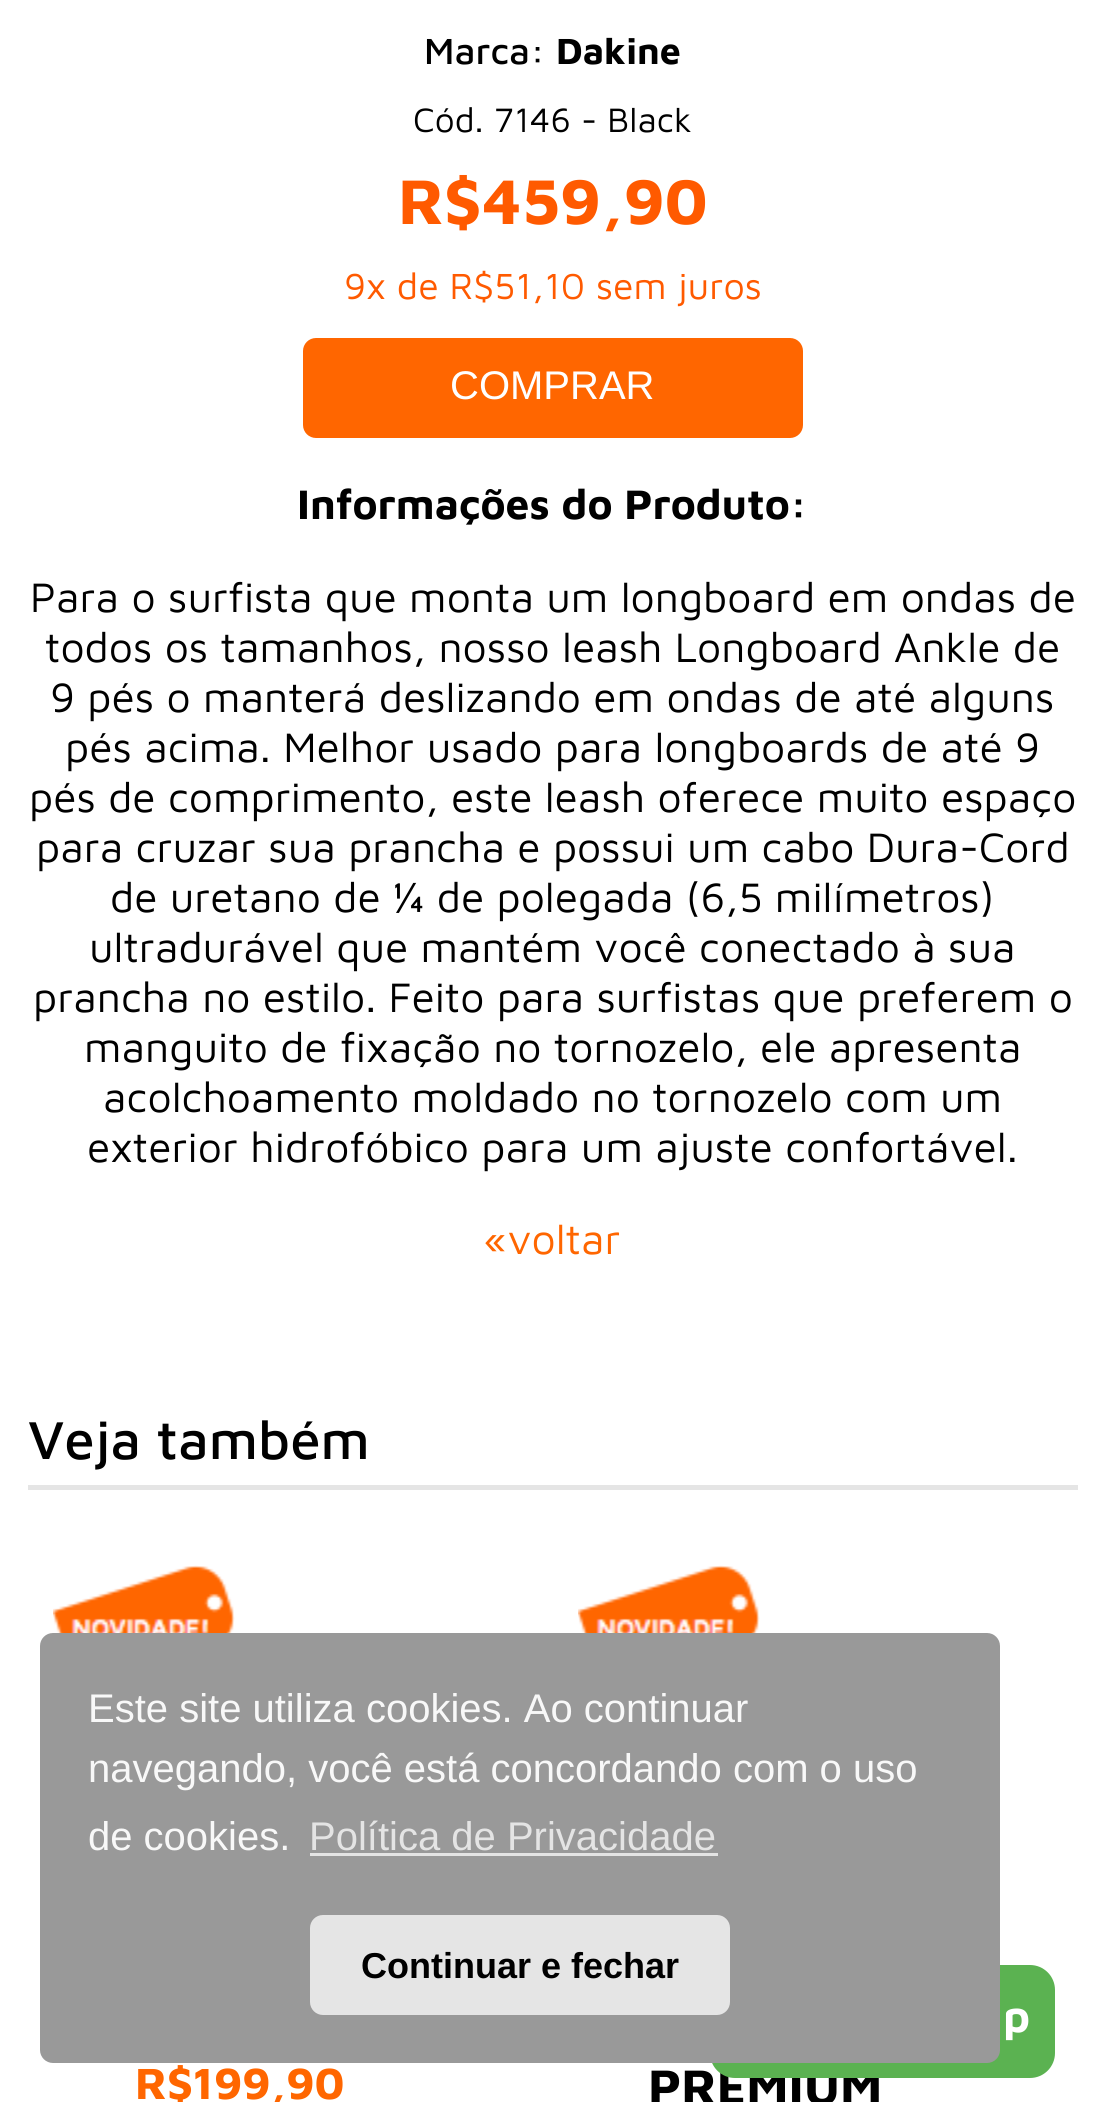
import math
import cairo

surface = cairo.ImageSurface(cairo.FORMAT_RGB24, 1105, 2102)
ctx = cairo.Context(surface)
options = cairo.FontOptions()
options.set_hint_metrics(cairo.HINT_METRICS_OFF)
options.set_hint_style(cairo.HINT_STYLE_NONE)
ctx.set_font_options(options)
ctx.set_miter_limit(4)


def round_rect(x, y, w, h, r):
    ctx.new_sub_path()
    for i, (u, v) in enumerate([(x + w - r, y + h - r), (x + r, y + h - r), (x + r, y + r), (x + w - r, y + r)]):
        ctx.arc(u, v, r, i * math.pi / 2, (i + 1) * math.pi / 2)
    ctx.close_path()


def picture(path, x, y, w, h):
    ctx.save()
    ctx.set_source_surface(cairo.ImageSurface.create_from_png(path), x, y)
    ctx.rectangle(x, y, w, h)
    ctx.fill()
    ctx.restore()


ctx.set_source_rgb(1, 1, 1)
ctx.paint()
ctx.select_font_face("Maven Pro Medium")
ctx.set_font_size(37.5)
ctx.set_source_rgb(0, 0, 0)
ctx.move_to(424, 64)
ctx.show_text("Marca:")
ctx.select_font_face("Maven Pro", cairo.FONT_SLANT_NORMAL, cairo.FONT_WEIGHT_BOLD)
ctx.move_to(556, 64)
ctx.show_text("Dakine")
ctx.select_font_face("Maven Pro")
ctx.set_font_size(35)
ctx.move_to(413, 132)
ctx.show_text("Cód. 7146 - Black")
ctx.select_font_face("Maven Pro", cairo.FONT_SLANT_NORMAL, cairo.FONT_WEIGHT_BOLD)
ctx.set_font_size(65)
ctx.set_source_rgb(1, 0.353, 0)
ctx.move_to(398, 224)
ctx.show_text("R$459,90")
ctx.select_font_face("Maven Pro")
ctx.set_font_size(37.5)
ctx.move_to(344, 299)
ctx.show_text("9x de R$51,10 sem juros")
ctx.set_source_rgb(1, 0.4, 0)
round_rect(303, 338, 500, 100, 13)
ctx.fill()
ctx.select_font_face("Liberation Sans")
ctx.set_font_size(40)
ctx.set_source_rgb(1, 1, 1)
ctx.move_to(450, 399)
ctx.show_text("COMPRAR")
ctx.select_font_face("Maven Pro", cairo.FONT_SLANT_NORMAL, cairo.FONT_WEIGHT_BOLD)
ctx.set_font_size(42.5)
ctx.set_source_rgb(0, 0, 0)
ctx.move_to(297, 519)
ctx.show_text("Informações do Produto:")
ctx.select_font_face("Maven Pro")
ctx.move_to(30, 612)
ctx.show_text("Para o surfista que monta um longboard em ondas de")
ctx.move_to(45, 662)
ctx.show_text("todos os tamanhos, nosso leash Longboard Ankle de")
ctx.move_to(50, 712)
ctx.show_text("9 pés o manterá deslizando em ondas de até alguns")
ctx.move_to(65, 762)
ctx.show_text("pés acima. Melhor usado para longboards de até 9")
ctx.move_to(29, 812)
ctx.show_text("pés de comprimento, este leash oferece muito espaço")
ctx.move_to(36, 862)
ctx.show_text("para cruzar sua prancha e possui um cabo Dura-Cord")
ctx.move_to(110, 912)
ctx.show_text("de uretano de ¼ de polegada (6,5 milímetros)")
ctx.move_to(89, 962)
ctx.show_text("ultradurável que mantém você conectado à sua")
ctx.move_to(33, 1012)
ctx.show_text("prancha no estilo. Feito para surfistas que preferem o")
ctx.move_to(84, 1062)
ctx.show_text("manguito de fixação no tornozelo, ele apresenta")
ctx.move_to(103, 1112)
ctx.show_text("acolchoamento moldado no tornozelo com um")
ctx.move_to(87, 1162)
ctx.show_text("exterior hidrofóbico para um ajuste confortável.")
ctx.set_source_rgb(1, 0.4, 0)
ctx.move_to(484, 1254)
ctx.show_text("«voltar")
ctx.set_source_rgb(0.898, 0.898, 0.898)
ctx.rectangle(28, 1485, 1050, 5)
ctx.fill()
ctx.select_font_face("Maven Pro Medium")
ctx.set_font_size(55)
ctx.set_source_rgb(0, 0, 0)
ctx.move_to(28, 1459)
ctx.show_text("Veja também")
picture("img1.png", 53, 1565, 182, 68)
ctx.select_font_face("Maven Pro", cairo.FONT_SLANT_NORMAL, cairo.FONT_WEIGHT_BOLD)
ctx.set_font_size(45)
ctx.set_source_rgb(1, 0.4, 0)
ctx.move_to(135, 2099)
ctx.show_text("R$199,90")
picture("img1.png", 578, 1565, 182, 68)
ctx.set_font_size(50)
ctx.set_source_rgb(0, 0, 0)
ctx.move_to(648, 2104)
ctx.show_text("PREMIUM")
ctx.set_source_rgb(0.357, 0.698, 0.318)
round_rect(710, 1965, 345, 113, 25)
ctx.fill()
ctx.set_source_rgb(0.6, 0.6, 0.6)
round_rect(40, 1633, 960, 430, 13)
ctx.fill()
ctx.select_font_face("Liberation Sans")
ctx.set_font_size(40)
ctx.set_source_rgb(0.969, 0.969, 0.969)
ctx.move_to(88, 1722)
ctx.show_text("Este site utiliza cookies. Ao continuar")
ctx.move_to(88, 1782)
ctx.show_text("navegando, você está concordando com o uso")
ctx.move_to(88, 1850)
ctx.show_text("de cookies.")
ctx.set_source_rgb(0.894, 0.894, 0.894)
ctx.move_to(309, 1850)
ctx.show_text("Política de Privacidade")
ctx.rectangle(310, 1853, 408, 3)
ctx.fill()
ctx.set_source_rgb(0.898, 0.898, 0.898)
round_rect(310, 1915, 420, 100, 13)
ctx.fill()
ctx.select_font_face("Liberation Sans", cairo.FONT_SLANT_NORMAL, cairo.FONT_WEIGHT_BOLD)
ctx.set_font_size(36)
ctx.set_source_rgb(0, 0, 0)
ctx.move_to(361, 1978)
ctx.show_text("Continuar e fechar")
ctx.select_font_face("Maven Pro", cairo.FONT_SLANT_NORMAL, cairo.FONT_WEIGHT_BOLD)
ctx.set_font_size(45)
ctx.set_source_rgb(1, 1, 1)
ctx.move_to(1003, 2032)
ctx.show_text("p")
surface.write_to_png("page.png")
